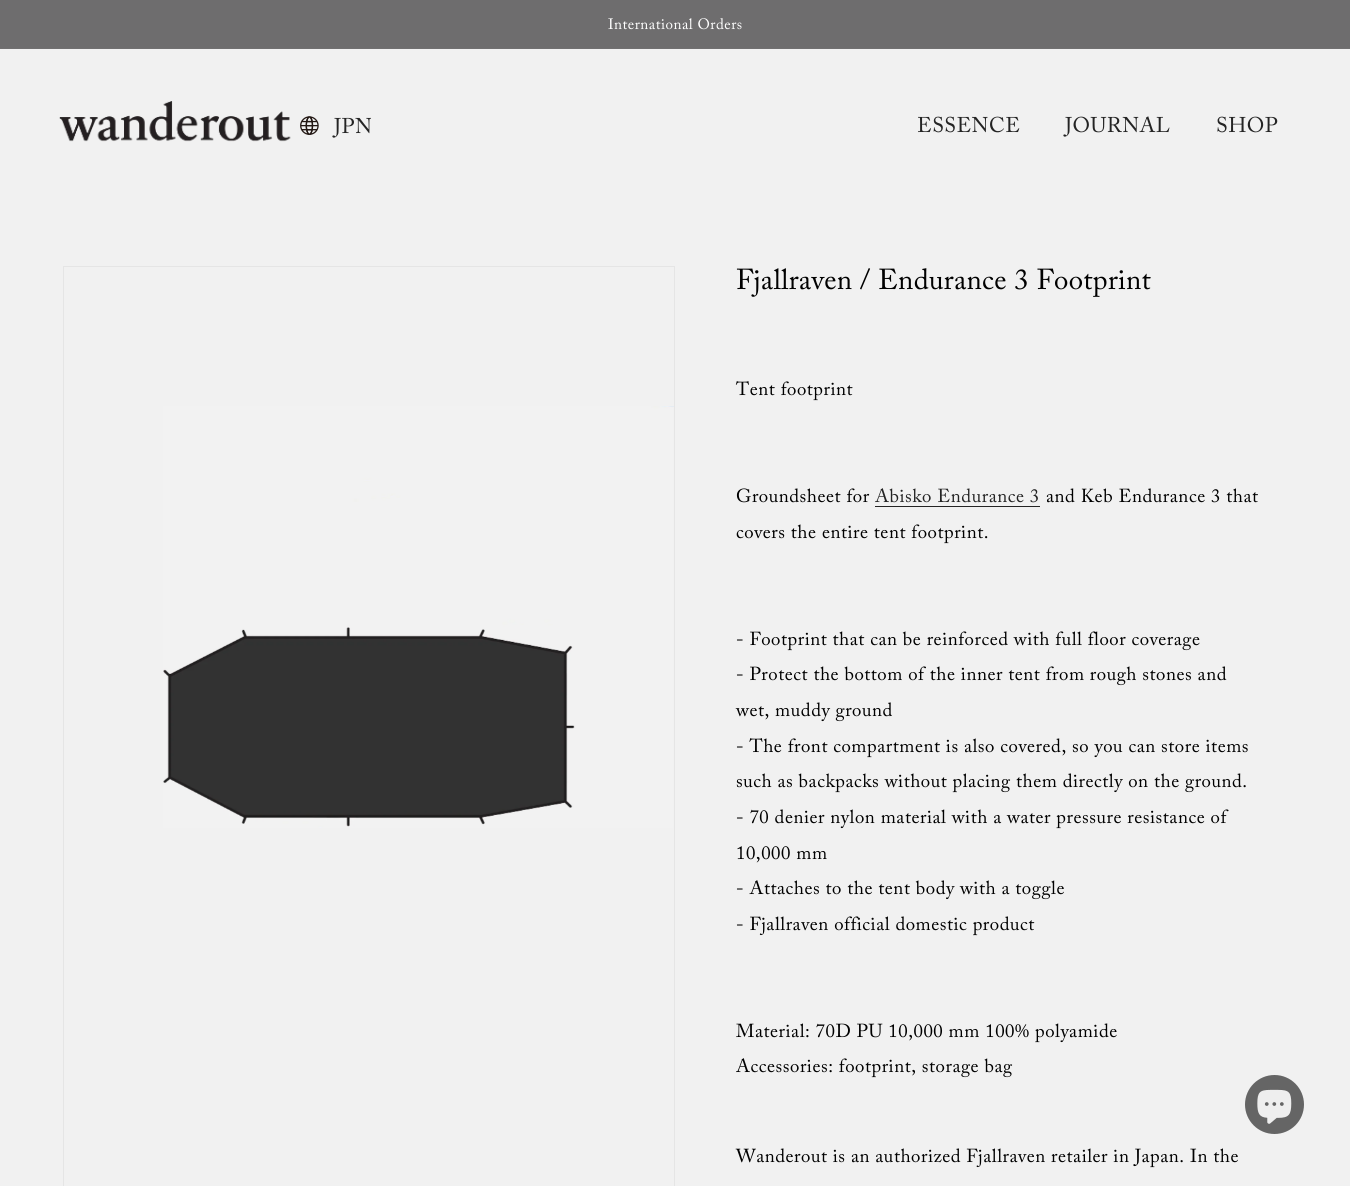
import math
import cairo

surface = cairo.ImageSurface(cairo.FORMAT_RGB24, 1350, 1186)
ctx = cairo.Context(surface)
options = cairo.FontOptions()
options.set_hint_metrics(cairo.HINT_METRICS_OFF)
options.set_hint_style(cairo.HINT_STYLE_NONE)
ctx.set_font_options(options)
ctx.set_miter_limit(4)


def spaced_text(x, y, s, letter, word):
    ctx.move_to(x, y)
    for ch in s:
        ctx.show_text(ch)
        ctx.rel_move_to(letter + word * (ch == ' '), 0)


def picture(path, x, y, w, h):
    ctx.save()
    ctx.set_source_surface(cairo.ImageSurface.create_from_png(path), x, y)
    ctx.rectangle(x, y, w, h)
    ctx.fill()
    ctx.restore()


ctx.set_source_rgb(0.945, 0.945, 0.945)
ctx.paint()
ctx.set_source_rgb(0.443, 0.439, 0.443)
ctx.rectangle(0, 48, 1350, 1)
ctx.fill()
ctx.set_source_rgb(0.431, 0.427, 0.431)
ctx.rectangle(0, 0, 1350, 48)
ctx.fill()
ctx.select_font_face("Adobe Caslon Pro")
ctx.set_font_size(15)
ctx.set_source_rgb(1, 1, 1)
spaced_text(608, 29, "International Orders", 0.5, 0)
picture("img1.png", 59, 101, 232, 41)
picture("img2.png", 300, 116, 19, 19)
ctx.set_font_size(21.25)
ctx.set_source_rgb(0.141, 0.141, 0.141)
spaced_text(334, 133, "JPN", 0.5, 0)
spaced_text(917, 132, "ESSENCE", 0.5, 0)
spaced_text(1065, 132, "JOURNAL", 0.5, 0)
spaced_text(1216, 132, "SHOP", 0.5, 0)
ctx.rectangle(63.5, 266.5, 611, 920)
ctx.set_source_rgb(0.898, 0.898, 0.898)
ctx.set_line_width(1)
ctx.stroke()
picture("img3.png", 163, 406, 511, 422)
ctx.set_font_size(28.75)
ctx.set_source_rgb(0, 0, 0)
spaced_text(736, 289, "Fjallraven / Endurance 3 Footprint", 0.3, 0)
ctx.set_font_size(18.75)
spaced_text(736, 395, "Tent footprint", 0.55, 0)
spaced_text(736, 502, "Groundsheet for", 0.55, 0)
ctx.set_source_rgb(0.141, 0.141, 0.141)
spaced_text(875, 502, "Abisko Endurance 3", 0.55, 0)
ctx.rectangle(875, 506, 165, 1)
ctx.fill()
ctx.set_source_rgb(0, 0, 0)
spaced_text(1046, 502, "and Keb Endurance 3 that", 0.55, 0)
spaced_text(736, 538, "covers the entire tent footprint.", 0.55, 0)
spaced_text(736, 645, "- Footprint that can be reinforced with full floor coverage", 0.55, 0)
spaced_text(736, 680, "- Protect the bottom of the inner tent from rough stones and", 0.55, 0)
spaced_text(736, 716, "wet, muddy ground", 0.55, 0)
spaced_text(736, 752, "- The front compartment is also covered, so you can store items", 0.55, 0)
spaced_text(736, 787, "such as backpacks without placing them directly on the ground.", 0.55, 0)
spaced_text(736, 823, "- 70 denier nylon material with a water pressure resistance of", 0.55, 0)
spaced_text(736, 859, "10,000 mm", 0.55, 0)
spaced_text(736, 894, "- Attaches to the tent body with a toggle", 0.55, 0)
spaced_text(736, 930, "- Fjallraven official domestic product", 0.55, 0)
spaced_text(736, 1037, "Material: 70D PU 10,000 mm 100% polyamide", 0.55, 0)
spaced_text(736, 1072, "Accessories: footprint, storage bag", 0.55, 0)
spaced_text(736, 1162, "Wanderout is an authorized Fjallraven retailer in Japan. In the", 0.55, 0)
ctx.set_source_rgb(0.396, 0.396, 0.396)
ctx.new_path()
ctx.arc(1274.5, 1104.5, 29.5, 0, 2 * math.pi)
ctx.fill()
picture("img4.png", 1257, 1089, 35, 35)
surface.write_to_png("page.png")
